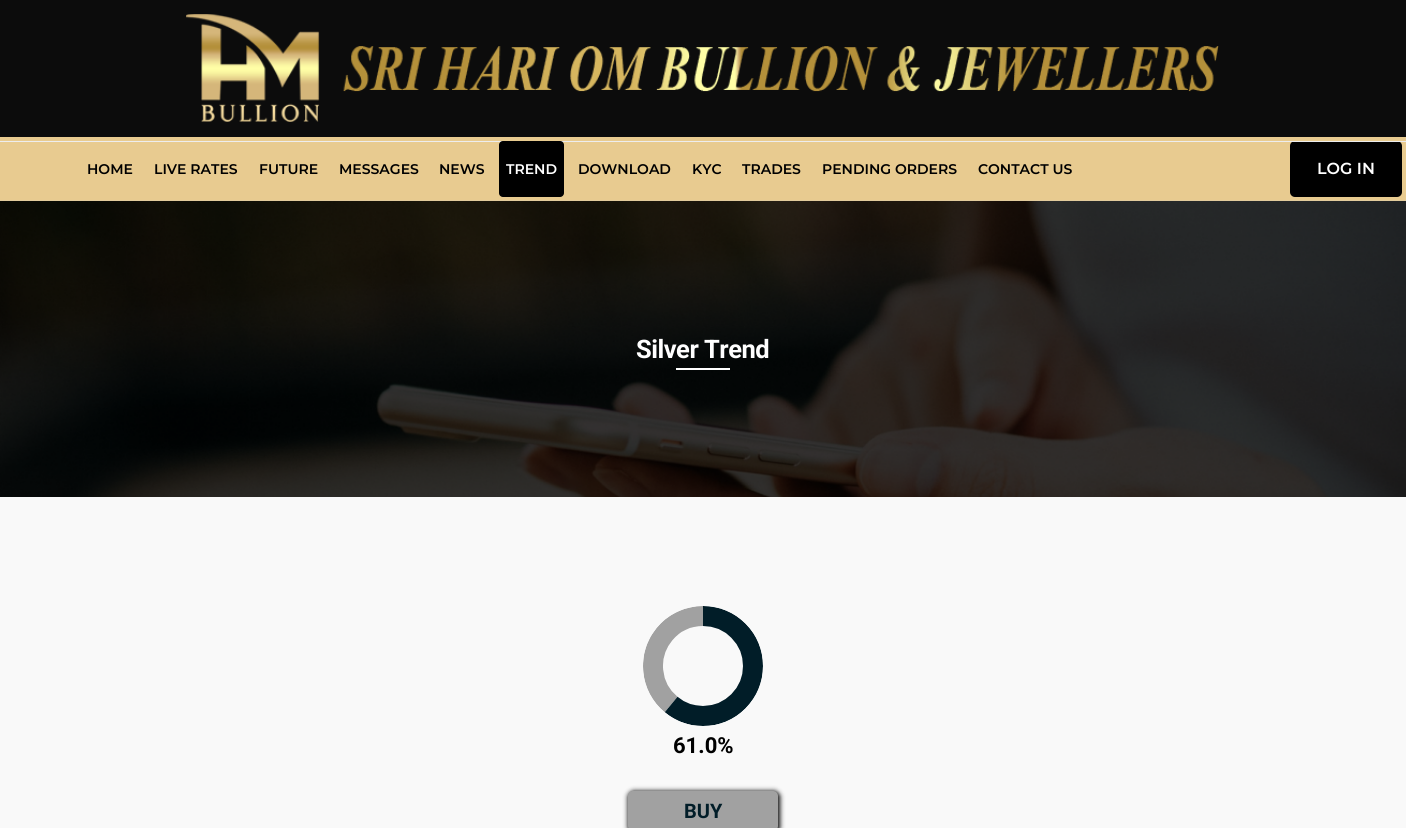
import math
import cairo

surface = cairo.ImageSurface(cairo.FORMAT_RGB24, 1406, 828)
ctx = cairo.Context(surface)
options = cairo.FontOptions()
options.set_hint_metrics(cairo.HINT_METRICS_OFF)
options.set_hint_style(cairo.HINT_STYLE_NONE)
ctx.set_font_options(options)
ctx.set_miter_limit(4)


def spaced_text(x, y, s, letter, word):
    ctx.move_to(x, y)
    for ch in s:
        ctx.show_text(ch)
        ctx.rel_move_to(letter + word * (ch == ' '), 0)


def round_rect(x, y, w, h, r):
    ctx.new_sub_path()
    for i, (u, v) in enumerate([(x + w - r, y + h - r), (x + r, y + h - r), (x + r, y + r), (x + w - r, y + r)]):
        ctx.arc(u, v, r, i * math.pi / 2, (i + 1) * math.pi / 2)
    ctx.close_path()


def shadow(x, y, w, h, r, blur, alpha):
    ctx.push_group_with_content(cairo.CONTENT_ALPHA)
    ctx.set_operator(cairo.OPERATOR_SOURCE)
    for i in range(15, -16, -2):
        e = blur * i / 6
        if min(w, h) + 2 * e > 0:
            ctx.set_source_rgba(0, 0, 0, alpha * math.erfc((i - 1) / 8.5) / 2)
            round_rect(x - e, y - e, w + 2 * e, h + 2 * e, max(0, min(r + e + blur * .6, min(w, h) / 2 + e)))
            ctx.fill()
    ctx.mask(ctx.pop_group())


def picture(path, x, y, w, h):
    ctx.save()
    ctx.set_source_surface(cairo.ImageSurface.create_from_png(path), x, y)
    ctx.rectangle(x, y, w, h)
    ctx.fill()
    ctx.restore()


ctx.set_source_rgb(1, 1, 1)
ctx.paint()
ctx.set_source_rgb(0.047, 0.047, 0.047)
ctx.rectangle(0, 0, 1406, 137)
ctx.fill()
picture("img1.png", 186, 14, 1033, 108)
ctx.set_source_rgb(0.91, 0.796, 0.565)
ctx.rectangle(0, 137, 1406, 63)
ctx.fill()
ctx.set_source_rgb(0, 0, 0)
round_rect(1290, 141, 112, 56, 5)
ctx.fill()
ctx.set_source_rgb(0.929, 0.929, 0.933)
ctx.rectangle(0, 141, 1406, 1)
ctx.fill()
ctx.select_font_face("Montserrat SemiBold")
ctx.set_font_size(14)
ctx.set_source_rgb(0, 0, 0)
ctx.move_to(87, 174)
ctx.show_text("HOME")
ctx.move_to(154, 174)
ctx.show_text("LIVE RATES")
ctx.move_to(259, 174)
ctx.show_text("FUTURE")
ctx.move_to(339, 174)
ctx.show_text("MESSAGES")
ctx.move_to(439, 174)
ctx.show_text("NEWS")
round_rect(499, 141, 65, 56, 4)
ctx.fill()
ctx.set_source_rgb(1, 1, 1)
ctx.move_to(506, 174)
ctx.show_text("TREND")
ctx.set_source_rgb(0, 0, 0)
ctx.move_to(578, 174)
ctx.show_text("DOWNLOAD")
ctx.move_to(692, 174)
ctx.show_text("KYC")
ctx.move_to(742, 174)
ctx.show_text("TRADES")
ctx.move_to(822, 174)
ctx.show_text("PENDING ORDERS")
ctx.move_to(978, 174)
ctx.show_text("CONTACT US")
ctx.set_font_size(16)
ctx.set_source_rgb(1, 1, 1)
ctx.move_to(1317, 174)
ctx.show_text("LOG IN")
ctx.set_source_rgb(0.886, 0.796, 0.612)
ctx.rectangle(0, 200, 1406, 1)
ctx.fill()
picture("img2.png", 0, 201, 1406, 296)
ctx.select_font_face("Roboto", cairo.FONT_SLANT_NORMAL, cairo.FONT_WEIGHT_BOLD)
ctx.set_font_size(25.5)
ctx.set_source_rgb(1, 1, 1)
spaced_text(636, 358, "Silver Trend", -0.5, 0)
ctx.rectangle(676, 368, 54, 2)
ctx.fill()
ctx.set_source_rgb(0.976, 0.976, 0.976)
ctx.rectangle(0, 497, 1406, 331)
ctx.fill()
picture("img3.png", 643, 606, 120, 120)
ctx.set_font_size(22)
ctx.set_source_rgb(0, 0, 0)
ctx.move_to(673, 753)
ctx.show_text("61.0%")
ctx.set_source_rgb(0, 0, 0)
shadow(628, 791, 152, 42, 6, 2.5, 1)
ctx.set_source_rgb(0.631, 0.631, 0.631)
round_rect(628, 791, 150, 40, 5)
ctx.fill()
ctx.set_font_size(20)
ctx.set_source_rgb(0.004, 0.114, 0.157)
ctx.move_to(684, 818)
ctx.show_text("BUY")
surface.write_to_png("page.png")
